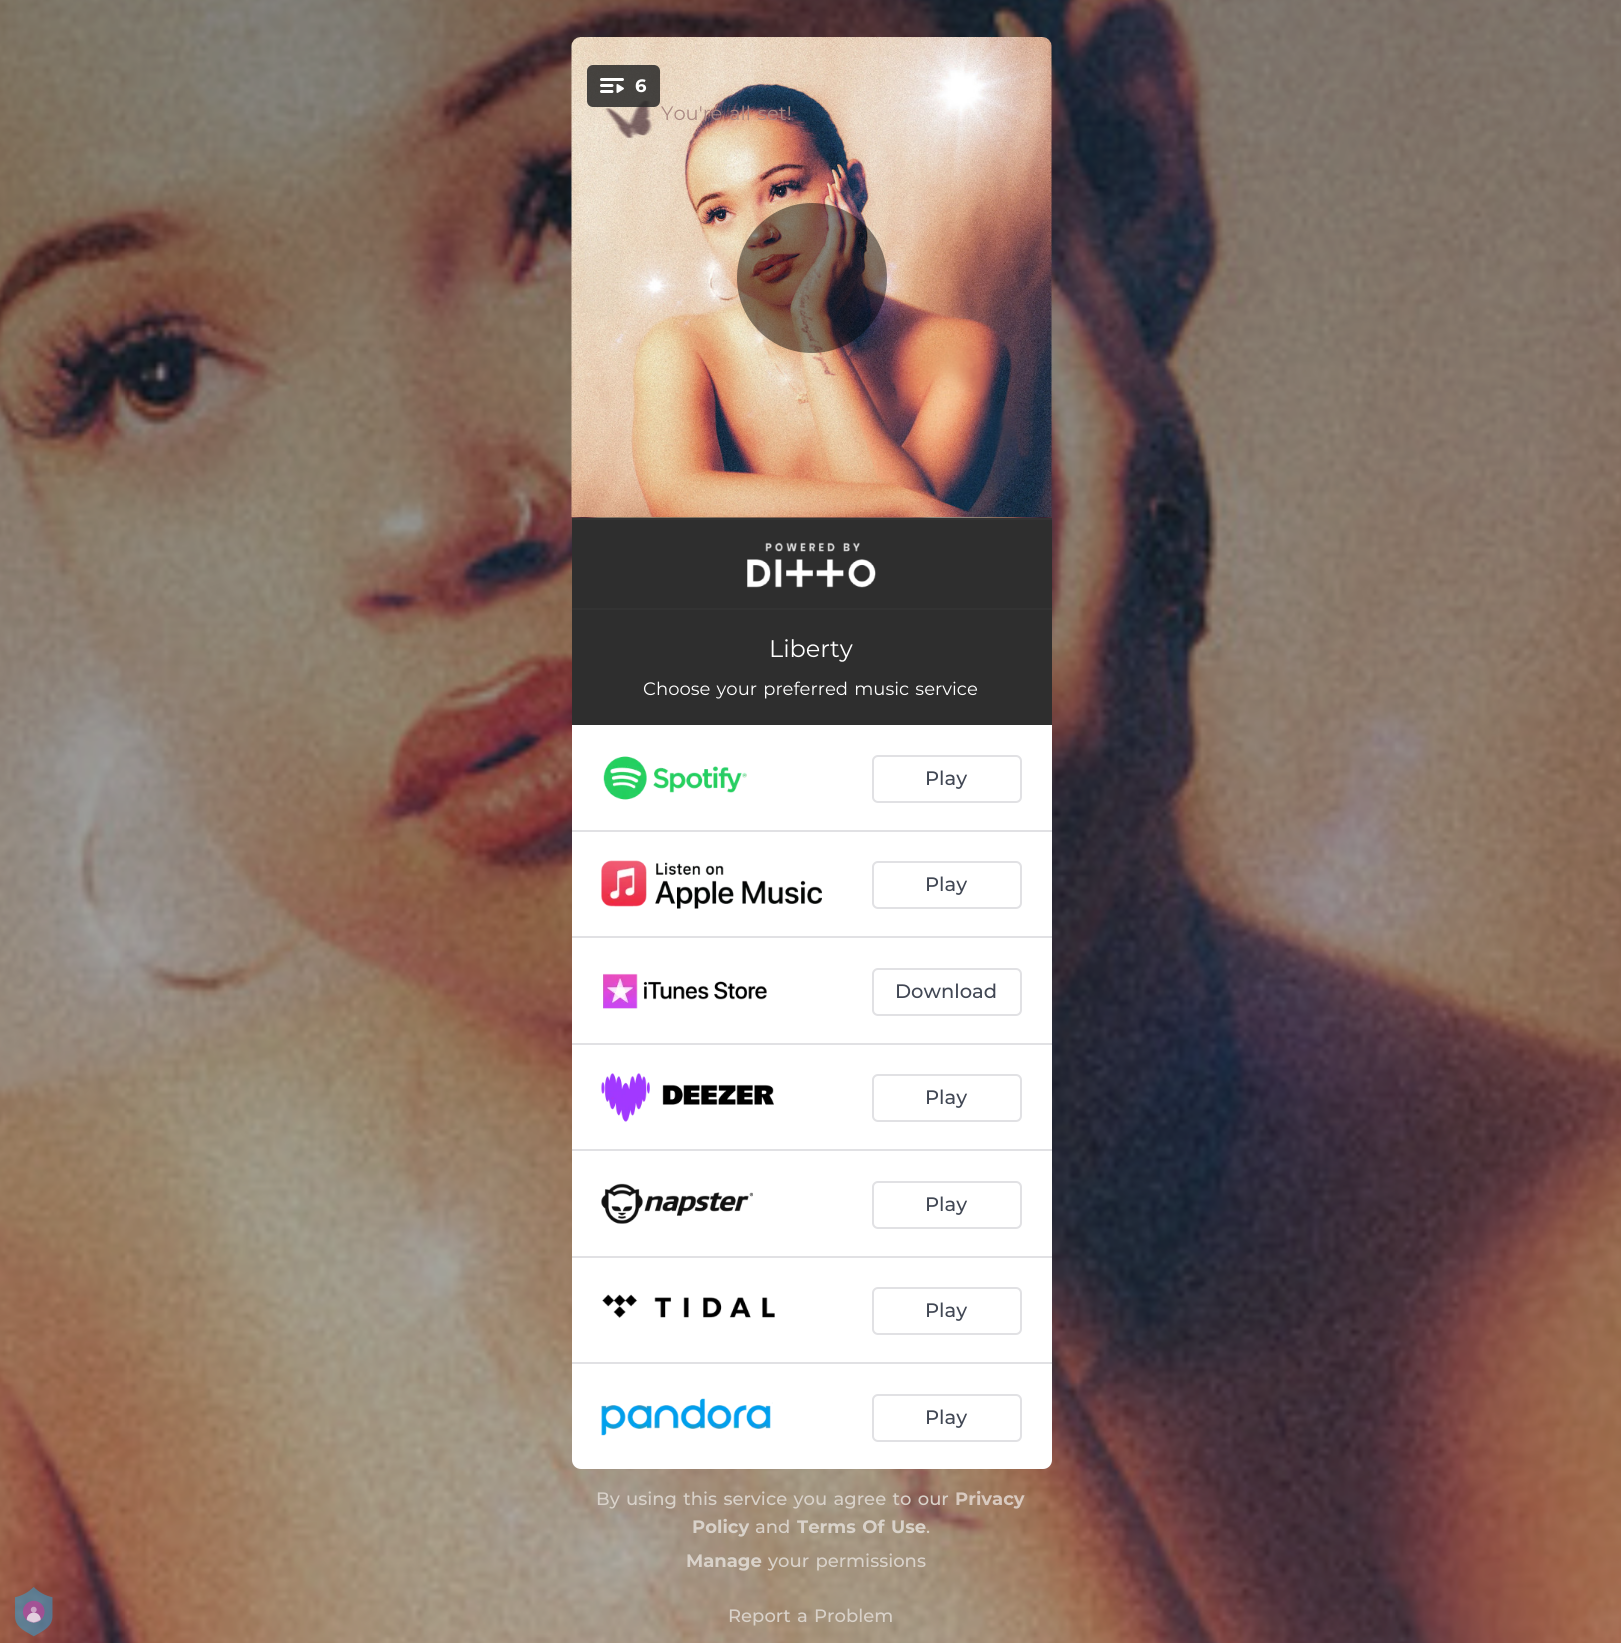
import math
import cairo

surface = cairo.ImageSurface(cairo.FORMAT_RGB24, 1621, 1643)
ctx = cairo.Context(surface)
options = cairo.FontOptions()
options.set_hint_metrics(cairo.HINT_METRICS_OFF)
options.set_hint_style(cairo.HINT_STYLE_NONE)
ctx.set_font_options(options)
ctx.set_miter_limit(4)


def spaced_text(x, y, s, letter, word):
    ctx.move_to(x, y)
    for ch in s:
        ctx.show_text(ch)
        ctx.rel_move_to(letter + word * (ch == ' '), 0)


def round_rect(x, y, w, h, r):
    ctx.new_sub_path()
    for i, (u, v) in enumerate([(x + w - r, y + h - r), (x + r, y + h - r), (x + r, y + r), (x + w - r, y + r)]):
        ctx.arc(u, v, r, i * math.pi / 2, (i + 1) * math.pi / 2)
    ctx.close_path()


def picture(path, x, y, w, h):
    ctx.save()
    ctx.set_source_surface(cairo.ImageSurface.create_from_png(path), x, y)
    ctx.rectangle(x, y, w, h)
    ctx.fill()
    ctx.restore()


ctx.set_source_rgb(1, 1, 1)
ctx.paint()
picture("img2.png", 0, 0, 1621, 1643)
picture("img1.png", 15, 1587, 38, 50)
picture("img3.png", 571, 37, 481, 480)
ctx.set_source_rgba(0.157, 0.157, 0.157, 0.85)
round_rect(587, 65, 73, 42, 6)
ctx.fill()
picture("img4.png", 600, 78, 24, 15)
ctx.select_font_face("Montserrat", cairo.FONT_SLANT_NORMAL, cairo.FONT_WEIGHT_BOLD)
ctx.set_font_size(18)
ctx.set_source_rgb(1, 1, 1)
ctx.move_to(635, 92)
ctx.show_text("6")
ctx.set_source_rgba(0, 0, 0, 0.45)
ctx.new_path()
ctx.arc(812, 278, 75, 0, 2 * math.pi)
ctx.fill()
ctx.select_font_face("Montserrat")
ctx.set_font_size(19.5)
ctx.set_source_rgb(0.667, 0.533, 0.51)
spaced_text(661, 120, "You're all set!", 0, 1.5)
ctx.set_source_rgb(0.18, 0.18, 0.18)
ctx.rectangle(572, 520, 480, 88)
ctx.fill()
ctx.set_source_rgb(0.2, 0.2, 0.2)
ctx.rectangle(572, 518, 480, 2)
ctx.fill()
ctx.rectangle(572, 608, 480, 2)
ctx.fill()
picture("img5.png", 747, 542, 129, 46)
ctx.set_source_rgb(0.18, 0.18, 0.18)
ctx.rectangle(572, 610, 480, 115)
ctx.fill()
ctx.set_font_size(24)
ctx.set_source_rgb(1, 1, 1)
ctx.move_to(769, 657)
ctx.show_text("Liberty")
ctx.set_font_size(18)
spaced_text(643, 695, "Choose your preferred music service", 0, 1.5)
ctx.new_path()
ctx.move_to(572, 725)
ctx.line_to(1052, 725)
ctx.line_to(1052, 1460)
ctx.curve_to(1052, 1465, 1048, 1469, 1043, 1469)
ctx.line_to(581, 1469)
ctx.curve_to(576, 1469, 572, 1465, 572, 1460)
ctx.close_path()
ctx.fill()
ctx.set_source_rgb(0.882, 0.882, 0.894)
ctx.rectangle(572, 830, 480, 2)
ctx.fill()
picture("img6.png", 603, 756, 144, 44)
round_rect(873, 756, 148, 46, 5)
ctx.stroke()
ctx.select_font_face("Montserrat Medium")
ctx.set_font_size(19.5)
ctx.set_source_rgb(0.255, 0.278, 0.329)
ctx.move_to(925, 785)
ctx.show_text("Play")
ctx.set_source_rgb(0.882, 0.882, 0.894)
ctx.rectangle(572, 936, 480, 2)
ctx.fill()
picture("img7.png", 601, 860, 221, 49)
round_rect(873, 862, 148, 46, 5)
ctx.stroke()
ctx.set_source_rgb(0.255, 0.278, 0.329)
ctx.move_to(925, 891)
ctx.show_text("Play")
ctx.set_source_rgb(0.882, 0.882, 0.894)
ctx.rectangle(572, 1043, 480, 2)
ctx.fill()
picture("img8.png", 603, 973, 164, 36)
round_rect(873, 969, 148, 46, 5)
ctx.stroke()
ctx.set_source_rgb(0.255, 0.278, 0.329)
ctx.move_to(895, 998)
ctx.show_text("Download")
ctx.set_source_rgb(0.882, 0.882, 0.894)
ctx.rectangle(572, 1149, 480, 2)
ctx.fill()
picture("img9.png", 601, 1073, 173, 49)
round_rect(873, 1075, 148, 46, 5)
ctx.stroke()
ctx.set_source_rgb(0.255, 0.278, 0.329)
ctx.move_to(925, 1104)
ctx.show_text("Play")
ctx.set_source_rgb(0.882, 0.882, 0.894)
ctx.rectangle(572, 1256, 480, 2)
ctx.fill()
picture("img10.png", 601, 1183, 152, 41)
round_rect(873, 1182, 148, 46, 5)
ctx.stroke()
ctx.set_source_rgb(0.255, 0.278, 0.329)
ctx.move_to(925, 1211)
ctx.show_text("Play")
ctx.set_source_rgb(0.882, 0.882, 0.894)
ctx.rectangle(572, 1362, 480, 2)
ctx.fill()
picture("img11.png", 602, 1294, 173, 24)
round_rect(873, 1288, 148, 46, 5)
ctx.stroke()
ctx.set_source_rgb(0.255, 0.278, 0.329)
ctx.move_to(925, 1317)
ctx.show_text("Play")
picture("img12.png", 601, 1398, 172, 38)
round_rect(873, 1395, 148, 46, 5)
ctx.set_source_rgb(0.882, 0.882, 0.894)
ctx.stroke()
ctx.set_source_rgb(0.255, 0.278, 0.329)
ctx.move_to(925, 1424)
ctx.show_text("Play")
ctx.set_font_size(18)
ctx.set_source_rgb(0.851, 0.824, 0.792)
spaced_text(596, 1505, "By using this service you agree to our", 0, 1.5)
ctx.select_font_face("Montserrat", cairo.FONT_SLANT_NORMAL, cairo.FONT_WEIGHT_BOLD)
ctx.set_source_rgb(0.851, 0.792, 0.753)
ctx.move_to(955, 1505)
ctx.show_text("Privacy")
ctx.set_source_rgb(0.851, 0.824, 0.792)
ctx.move_to(692, 1533)
ctx.show_text("Policy")
ctx.select_font_face("Montserrat Medium")
ctx.move_to(755, 1533)
ctx.show_text("and")
ctx.select_font_face("Montserrat", cairo.FONT_SLANT_NORMAL, cairo.FONT_WEIGHT_BOLD)
spaced_text(797, 1533, "Terms Of Use", 0, 1.5)
ctx.select_font_face("Montserrat Medium")
ctx.move_to(926, 1533)
ctx.show_text(".")
ctx.select_font_face("Montserrat", cairo.FONT_SLANT_NORMAL, cairo.FONT_WEIGHT_BOLD)
ctx.move_to(686, 1567)
ctx.show_text("Manage")
ctx.select_font_face("Montserrat Medium")
spaced_text(768, 1567, "your permissions", 0, 1.5)
spaced_text(728, 1622, "Report a Problem", 0, 1.5)
surface.write_to_png("page.png")
